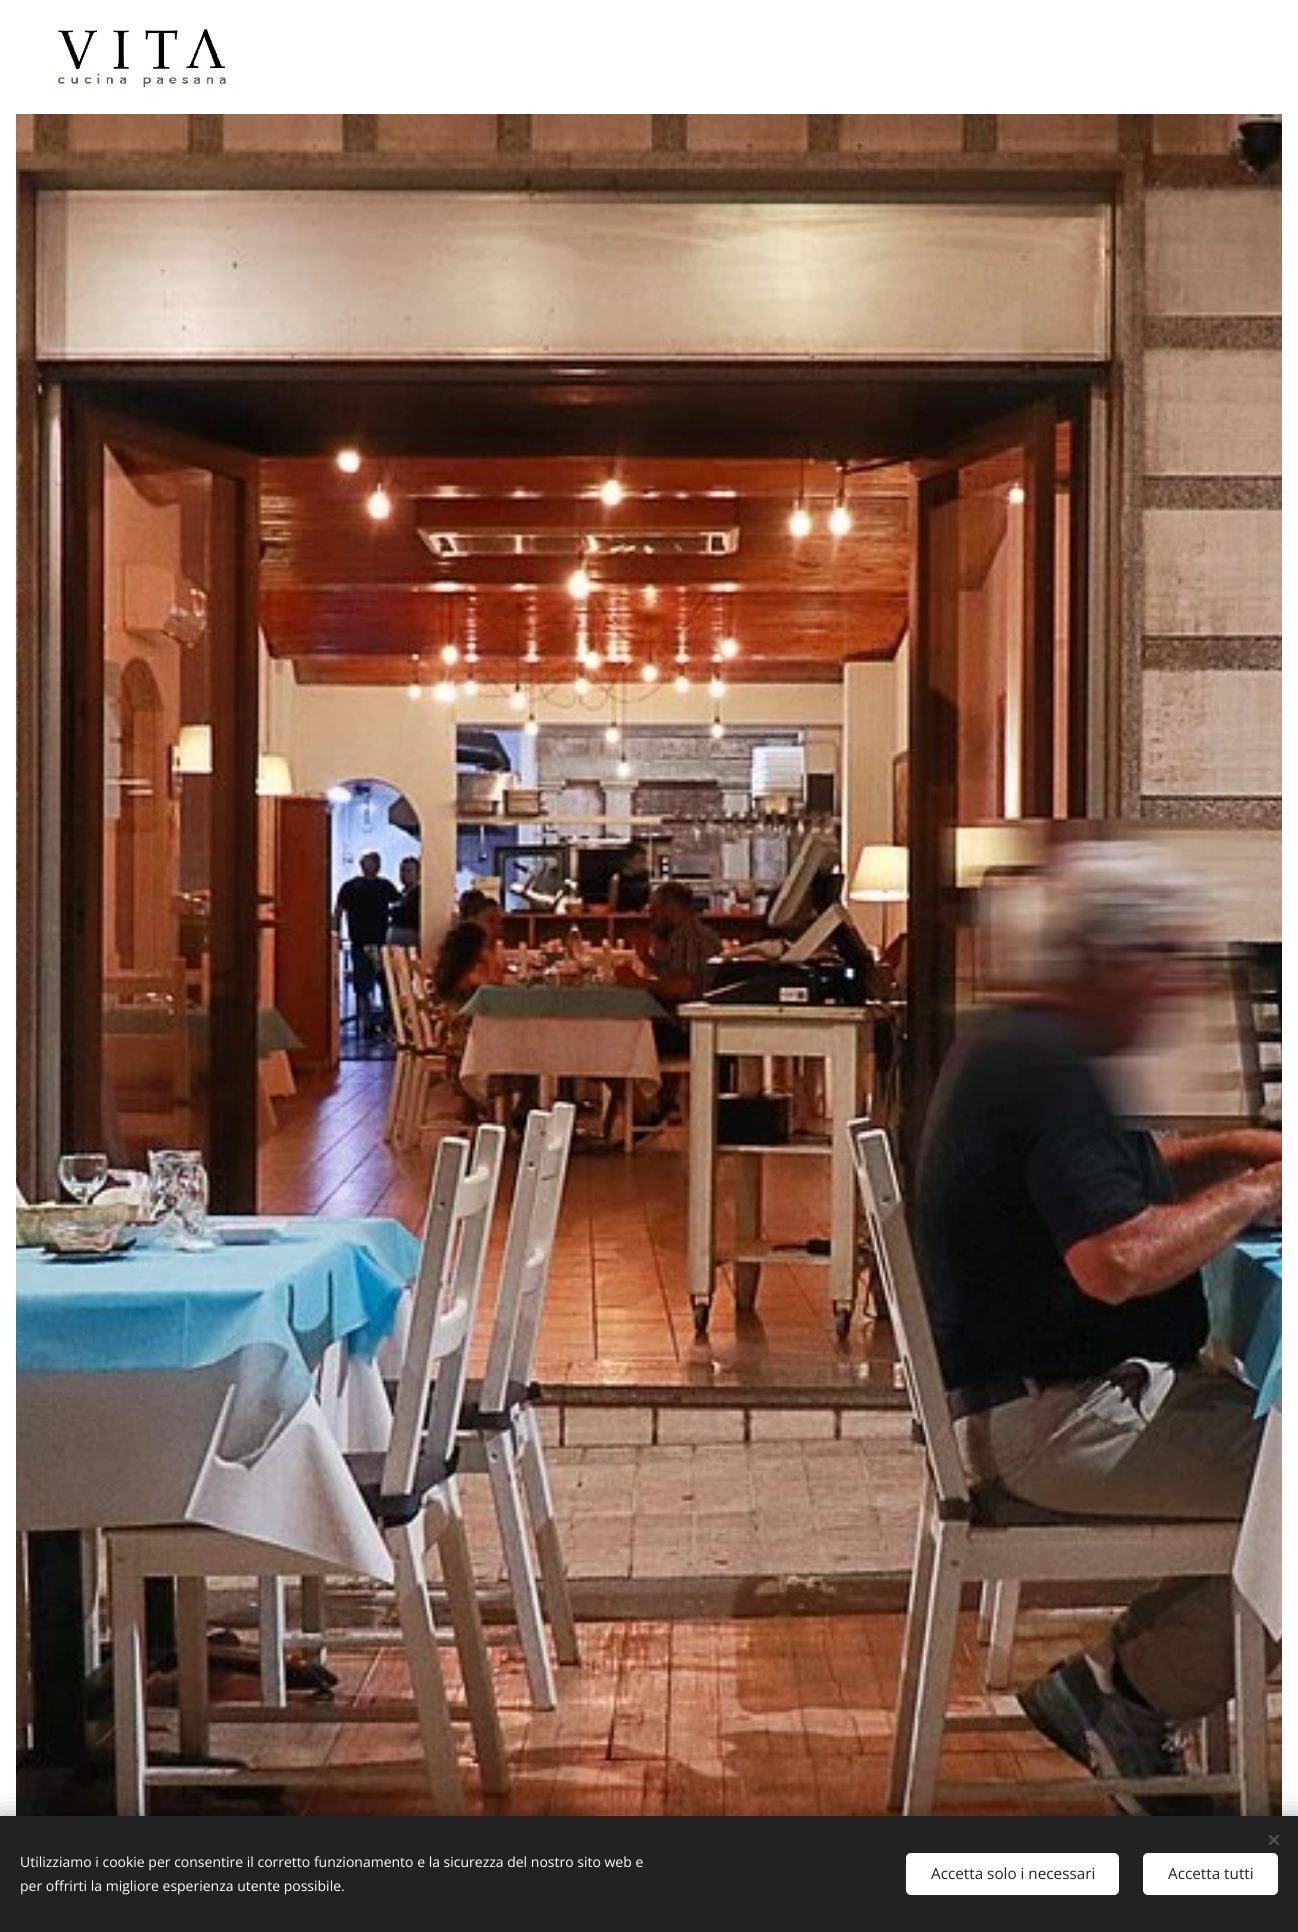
import math
import cairo

surface = cairo.ImageSurface(cairo.FORMAT_RGB24, 1298, 1932)
ctx = cairo.Context(surface)
options = cairo.FontOptions()
options.set_hint_metrics(cairo.HINT_METRICS_OFF)
options.set_hint_style(cairo.HINT_STYLE_NONE)
ctx.set_font_options(options)
ctx.set_miter_limit(4)


def round_rect(x, y, w, h, r):
    ctx.new_sub_path()
    for i, (u, v) in enumerate([(x + w - r, y + h - r), (x + r, y + h - r), (x + r, y + r), (x + w - r, y + r)]):
        ctx.arc(u, v, r, i * math.pi / 2, (i + 1) * math.pi / 2)
    ctx.close_path()


def shadow(x, y, w, h, r, blur, alpha):
    ctx.push_group_with_content(cairo.CONTENT_ALPHA)
    ctx.set_operator(cairo.OPERATOR_SOURCE)
    for i in range(15, -16, -2):
        e = blur * i / 6
        if min(w, h) + 2 * e > 0:
            ctx.set_source_rgba(0, 0, 0, alpha * math.erfc((i - 1) / 8.5) / 2)
            round_rect(x - e, y - e, w + 2 * e, h + 2 * e, max(0, min(r + e + blur * .6, min(w, h) / 2 + e)))
            ctx.fill()
    ctx.mask(ctx.pop_group())


def picture(path, x, y, w, h):
    ctx.save()
    ctx.set_source_surface(cairo.ImageSurface.create_from_png(path), x, y)
    ctx.rectangle(x, y, w, h)
    ctx.fill()
    ctx.restore()


ctx.set_source_rgb(1, 1, 1)
ctx.paint()
picture("img1.png", 58, 29, 168, 58)
picture("img2.png", 16, 114, 1266, 1702)
ctx.set_source_rgb(0, 0, 0)
shadow(0, 1816, 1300, 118, 0, 12.5, 0.33)
ctx.set_source_rgb(0.133, 0.133, 0.133)
ctx.rectangle(0, 1816, 1298, 116)
ctx.fill()
ctx.set_source_rgb(0.333, 0.333, 0.333)
ctx.new_path()
ctx.move_to(1268.5, 1844)
ctx.line_to(1278, 1834.5)
ctx.line_to(1279.5, 1836)
ctx.line_to(1270, 1845.5)
ctx.close_path()
ctx.fill()
ctx.new_path()
ctx.move_to(1270, 1834.5)
ctx.line_to(1279.5, 1844)
ctx.line_to(1278, 1845.5)
ctx.line_to(1268.5, 1836)
ctx.close_path()
ctx.fill()
ctx.select_font_face("Open Sans")
ctx.set_font_size(14)
ctx.set_source_rgb(1, 1, 1)
ctx.move_to(20, 1867)
ctx.show_text("Utilizziamo i cookie per consentire il corretto funzionamento e la sicurezza del nostro sito web e")
ctx.move_to(20, 1891)
ctx.show_text("per offrirti la migliore esperienza utente possibile.")
round_rect(906, 1853, 213, 42, 5)
ctx.fill()
ctx.set_font_size(15.25)
ctx.set_source_rgb(0.133, 0.133, 0.133)
ctx.move_to(931, 1879)
ctx.show_text("Accetta solo i necessari")
ctx.set_source_rgb(1, 1, 1)
round_rect(1143, 1853, 135, 42, 5)
ctx.fill()
ctx.set_source_rgb(0.133, 0.133, 0.133)
ctx.move_to(1168, 1879)
ctx.show_text("Accetta tutti")
surface.write_to_png("page.png")
